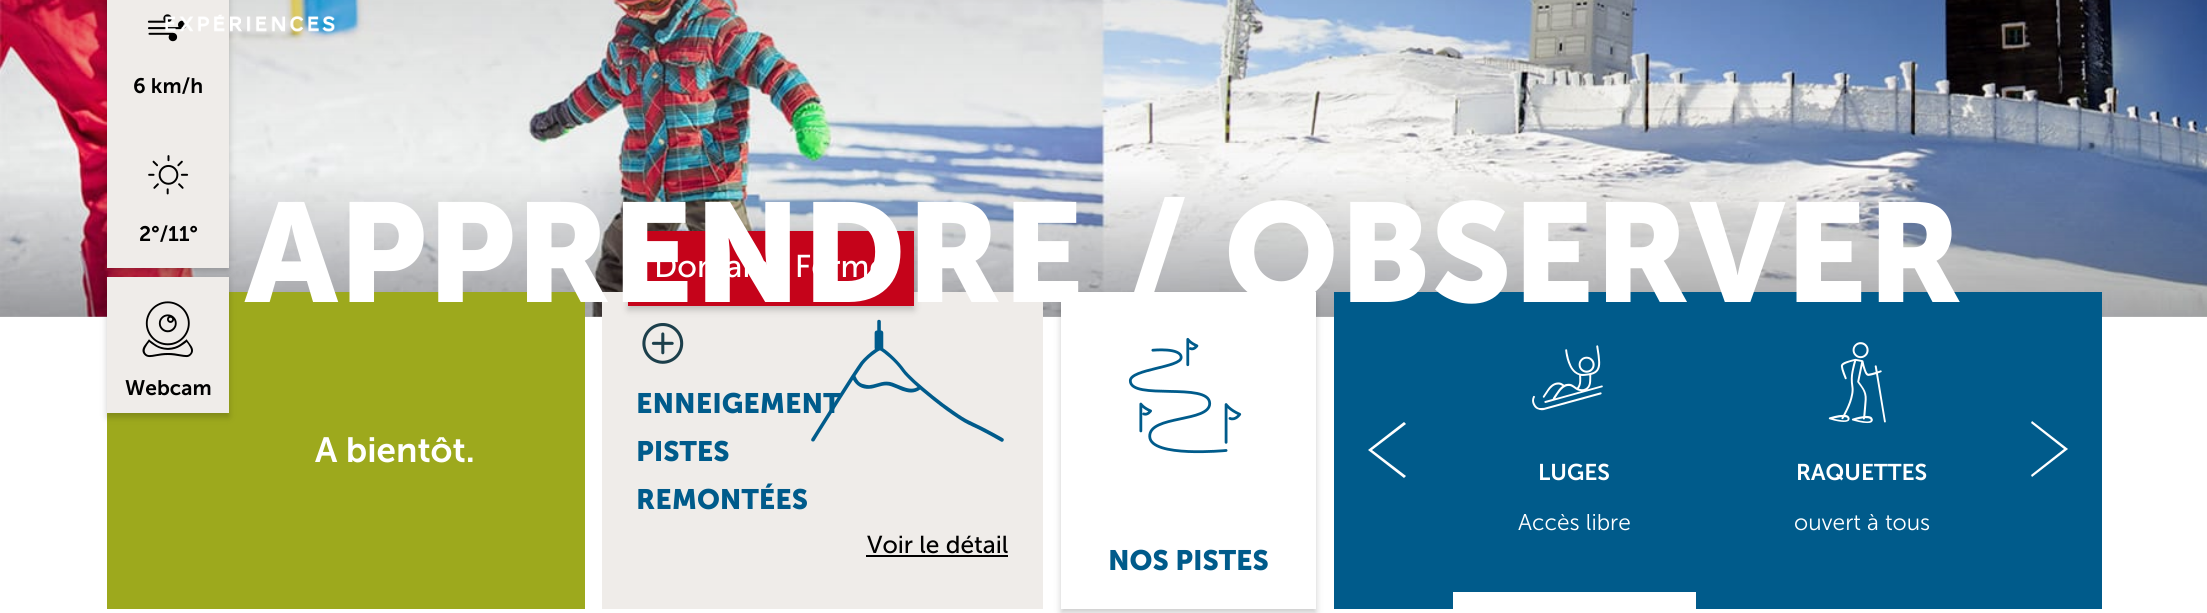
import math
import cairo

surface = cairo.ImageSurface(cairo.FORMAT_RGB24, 2207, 613)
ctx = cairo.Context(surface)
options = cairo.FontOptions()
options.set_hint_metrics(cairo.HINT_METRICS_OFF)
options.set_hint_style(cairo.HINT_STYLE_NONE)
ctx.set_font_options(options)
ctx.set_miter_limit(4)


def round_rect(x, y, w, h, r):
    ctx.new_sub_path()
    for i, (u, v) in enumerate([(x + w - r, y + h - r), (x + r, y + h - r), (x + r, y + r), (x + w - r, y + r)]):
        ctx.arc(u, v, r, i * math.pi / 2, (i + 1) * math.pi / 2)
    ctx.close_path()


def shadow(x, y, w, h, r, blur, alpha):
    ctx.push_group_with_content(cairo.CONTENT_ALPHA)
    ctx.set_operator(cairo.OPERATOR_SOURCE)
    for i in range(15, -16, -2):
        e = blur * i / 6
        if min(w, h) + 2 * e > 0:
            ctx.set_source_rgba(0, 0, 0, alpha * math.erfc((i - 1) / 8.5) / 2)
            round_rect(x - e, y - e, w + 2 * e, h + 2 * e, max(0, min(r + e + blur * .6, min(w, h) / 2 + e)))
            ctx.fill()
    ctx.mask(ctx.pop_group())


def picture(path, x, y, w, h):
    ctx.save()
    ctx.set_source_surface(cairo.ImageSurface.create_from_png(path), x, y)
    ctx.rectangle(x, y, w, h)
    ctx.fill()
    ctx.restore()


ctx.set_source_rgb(1, 1, 1)
ctx.paint()
picture("img2.png", 0, 0, 2207, 317)
gradient = cairo.LinearGradient(1104, -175, 1104, 317)
gradient.add_color_stop_rgba(0, 0, 0, 0, 0.2)
gradient.add_color_stop_rgba(0.7, 0, 0, 0, 0)
gradient.add_color_stop_rgba(1, 0, 0, 0, 0.2)
ctx.set_source(gradient)
ctx.rectangle(0, 0, 2207, 317)
ctx.fill()
ctx.set_source_rgb(0, 0, 0)
shadow(107, -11, 122, 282, 0, 3.5, 0.2)
ctx.set_source_rgb(0.937, 0.922, 0.914)
ctx.rectangle(107, 0, 122, 268)
ctx.fill()
picture("img3.png", 147, 14, 40, 28)
picture("img1.png", 164, 14, 171, 18)
ctx.select_font_face("Museo Sans SemiBold")
ctx.set_font_size(21)
ctx.set_source_rgb(0, 0, 0)
ctx.move_to(133, 93)
ctx.show_text("6 km/h")
picture("img4.png", 148, 155, 41, 40)
ctx.move_to(139, 241)
ctx.show_text("2°/11°")
ctx.set_source_rgb(0.616, 0.663, 0.114)
ctx.rectangle(107, 292, 478, 317)
ctx.fill()
ctx.set_source_rgb(0, 0, 0)
shadow(107, 280, 122, 137, 0, 3.5, 0.2)
ctx.set_source_rgb(0.937, 0.922, 0.914)
ctx.rectangle(107, 277, 122, 136)
ctx.fill()
picture("img5.png", 142, 301, 51, 57)
ctx.set_source_rgb(0, 0, 0)
ctx.move_to(125, 395)
ctx.show_text("Webcam")
ctx.set_source_rgb(0.937, 0.922, 0.914)
ctx.rectangle(602, 292, 441, 317)
ctx.fill()
picture("img6.png", 811, 319, 193, 123)
ctx.set_source_rgb(0, 0, 0)
shadow(628, 235, 286, 75, 0, 3.5, 0.2)
ctx.set_source_rgb(0.773, 0.012, 0.102)
ctx.rectangle(628, 231, 286, 75)
ctx.fill()
ctx.select_font_face("Museo Sans")
ctx.set_font_size(31.5)
ctx.set_source_rgb(1, 1, 1)
ctx.move_to(654, 277)
ctx.show_text("Domaine Fermé")
ctx.set_source_rgb(0, 0, 0)
shadow(1061, 296, 255, 317, 0, 3.5, 0.2)
ctx.set_source_rgb(1, 1, 1)
ctx.rectangle(1061, 292, 255, 317)
ctx.fill()
ctx.select_font_face("Museo Sans", cairo.FONT_SLANT_NORMAL, cairo.FONT_WEIGHT_BOLD)
ctx.set_font_size(140)
ctx.move_to(245, 302)
ctx.show_text("APPRENDRE")
ctx.move_to(1126, 302)
ctx.show_text("/")
ctx.set_source_rgb(0, 0.357, 0.545)
ctx.rectangle(1334, 292, 768, 317)
ctx.fill()
ctx.set_source_rgb(1, 1, 1)
ctx.move_to(1224, 302)
ctx.show_text("OBSERVER")
ctx.select_font_face("Museo Sans SemiBold")
ctx.set_font_size(35)
ctx.move_to(315, 462)
ctx.show_text("A bientôt.")
picture("img7.png", 642, 323, 42, 41)
ctx.select_font_face("Museo Sans", cairo.FONT_SLANT_NORMAL, cairo.FONT_WEIGHT_BOLD)
ctx.set_font_size(28)
ctx.set_source_rgb(0, 0.357, 0.545)
ctx.move_to(636, 413)
ctx.show_text("ENNEIGEMENT")
ctx.move_to(636, 461)
ctx.show_text("PISTES")
ctx.move_to(636, 509)
ctx.show_text("REMONTÉES")
ctx.select_font_face("Museo Sans")
ctx.set_font_size(24.5)
ctx.set_source_rgb(0, 0, 0)
ctx.move_to(867, 553)
ctx.show_text("Voir le détail")
ctx.rectangle(866, 555, 142, 2)
ctx.fill()
ctx.set_source_rgb(1, 1, 1)
ctx.new_path()
ctx.move_to(1406, 476)
ctx.line_to(1372, 450)
ctx.line_to(1406, 424)
ctx.line_to(1404, 422)
ctx.line_to(1368, 450)
ctx.line_to(1404, 478)
ctx.close_path()
ctx.fill()
ctx.new_path()
ctx.move_to(2031, 423)
ctx.line_to(2064, 449)
ctx.line_to(2031, 475)
ctx.line_to(2032, 477)
ctx.line_to(2068, 449)
ctx.line_to(2032, 421)
ctx.close_path()
ctx.fill()
picture("img8.png", 1532, 345, 71, 66)
ctx.select_font_face("Museo Sans SemiBold")
ctx.set_font_size(22.75)
ctx.move_to(1538, 480)
ctx.show_text("LUGES")
ctx.select_font_face("Museo Sans Light")
ctx.move_to(1518, 530)
ctx.show_text("Accès libre")
ctx.rectangle(1453, 592, 243, 17)
ctx.fill()
picture("img9.png", 1828, 342, 58, 82)
ctx.select_font_face("Museo Sans SemiBold")
ctx.move_to(1796, 480)
ctx.show_text("RAQUETTES")
ctx.select_font_face("Museo Sans Light")
ctx.move_to(1794, 530)
ctx.show_text("ouvert à tous")
picture("img10.png", 1128, 337, 114, 117)
ctx.select_font_face("Museo Sans", cairo.FONT_SLANT_NORMAL, cairo.FONT_WEIGHT_BOLD)
ctx.set_font_size(28)
ctx.set_source_rgb(0, 0.357, 0.545)
ctx.move_to(1108, 570)
ctx.show_text("NOS PISTES")
surface.write_to_png("page.png")
